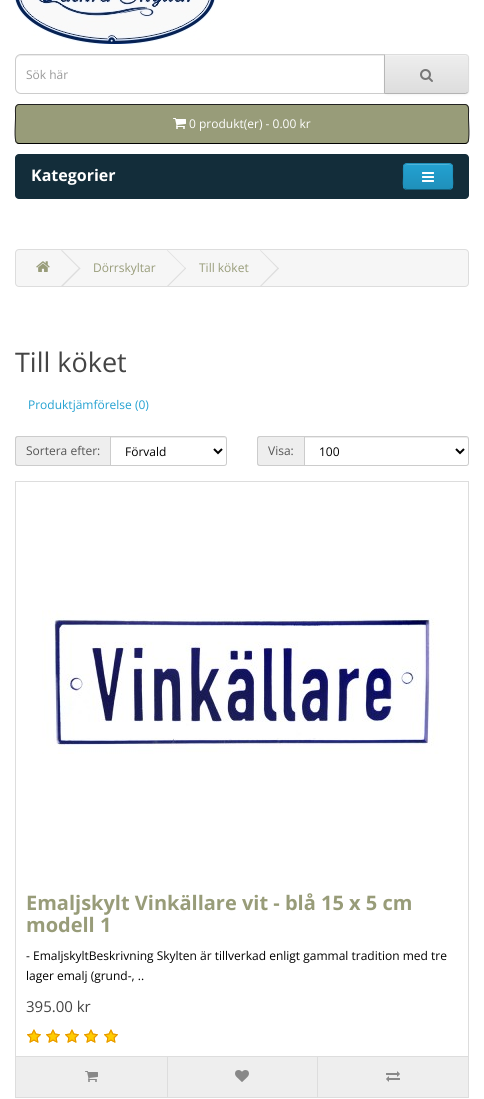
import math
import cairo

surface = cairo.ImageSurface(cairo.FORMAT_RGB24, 484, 1099)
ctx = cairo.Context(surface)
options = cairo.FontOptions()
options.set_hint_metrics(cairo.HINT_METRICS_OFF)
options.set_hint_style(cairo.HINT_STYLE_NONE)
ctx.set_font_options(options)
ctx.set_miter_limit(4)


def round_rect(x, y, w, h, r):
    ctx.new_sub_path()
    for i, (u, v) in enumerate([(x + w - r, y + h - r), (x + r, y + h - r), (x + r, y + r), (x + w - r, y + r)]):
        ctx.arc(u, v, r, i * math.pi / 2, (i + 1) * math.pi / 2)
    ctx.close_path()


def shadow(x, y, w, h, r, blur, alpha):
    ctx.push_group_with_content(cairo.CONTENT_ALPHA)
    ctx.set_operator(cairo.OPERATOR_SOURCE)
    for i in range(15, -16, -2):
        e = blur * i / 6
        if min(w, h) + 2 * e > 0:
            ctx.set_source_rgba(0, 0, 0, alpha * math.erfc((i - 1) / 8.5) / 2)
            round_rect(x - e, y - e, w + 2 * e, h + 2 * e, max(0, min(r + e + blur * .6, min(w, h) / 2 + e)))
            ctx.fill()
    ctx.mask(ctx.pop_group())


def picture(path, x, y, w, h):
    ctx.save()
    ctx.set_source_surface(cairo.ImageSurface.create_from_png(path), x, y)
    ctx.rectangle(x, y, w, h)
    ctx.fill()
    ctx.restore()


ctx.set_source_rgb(1, 1, 1)
ctx.paint()
picture("img1.png", 15, 0, 200, 44)
ctx.set_source_rgb(0.925, 0.925, 0.925)
ctx.new_path()
ctx.move_to(21, 56)
ctx.line_to(384, 56)
ctx.line_to(384, 55)
ctx.line_to(21, 55)
ctx.curve_to(18, 55, 16, 57, 16, 60)
ctx.line_to(16, 61)
ctx.curve_to(16, 58, 18, 56, 21, 56)
ctx.close_path()
ctx.fill()
ctx.new_path()
ctx.move_to(21, 54.5)
ctx.line_to(384.5, 54.5)
ctx.line_to(384.5, 93.5)
ctx.line_to(21, 93.5)
ctx.curve_to(18, 93.5, 15.5, 91, 15.5, 88)
ctx.line_to(15.5, 60)
ctx.curve_to(15.5, 57, 18, 54.5, 21, 54.5)
ctx.close_path()
ctx.set_source_rgb(0.8, 0.8, 0.8)
ctx.set_line_width(1)
ctx.stroke()
ctx.select_font_face("Open Sans")
ctx.set_font_size(12)
ctx.set_source_rgb(0.6, 0.6, 0.6)
ctx.move_to(26, 79)
ctx.show_text("Sök här")
ctx.set_source_rgb(0, 0, 0)
shadow(384, 55, 85, 40, 4, 1, 0.05)
ctx.set_source_rgb(0.906, 0.906, 0.906)
ctx.new_path()
ctx.move_to(384, 54)
ctx.line_to(465, 54)
ctx.curve_to(467, 54, 469, 56, 469, 58)
ctx.line_to(469, 90)
ctx.curve_to(469, 92, 467, 94, 465, 94)
ctx.line_to(384, 94)
ctx.close_path()
ctx.fill()
ctx.save()
ctx.new_path()
ctx.move_to(384, 54)
ctx.line_to(465, 54)
ctx.curve_to(467, 54, 469, 56, 469, 58)
ctx.line_to(469, 90)
ctx.curve_to(469, 92, 467, 94, 465, 94)
ctx.line_to(384, 94)
ctx.close_path()
ctx.clip()
gradient = cairo.LinearGradient(427, 55, 427, 93)
gradient.add_color_stop_rgba(0, 0.933, 0.933, 0.933, 1)
gradient.add_color_stop_rgba(1, 0.867, 0.867, 0.867, 1)
ctx.set_source(gradient)
ctx.rectangle(385, 55, 84, 38)
ctx.fill()
ctx.restore()
ctx.set_source_rgb(0.945, 0.945, 0.945)
ctx.new_path()
ctx.move_to(385, 56)
ctx.line_to(465, 56)
ctx.curve_to(467, 56, 468, 57, 468, 59)
ctx.line_to(468, 58)
ctx.curve_to(468, 56, 467, 55, 465, 55)
ctx.line_to(385, 55)
ctx.close_path()
ctx.fill()
ctx.set_source_rgb(0.867, 0.867, 0.867)
ctx.new_path()
ctx.move_to(384, 54)
ctx.line_to(385, 55)
ctx.line_to(466, 55)
ctx.line_to(467, 56)
ctx.line_to(468, 55)
ctx.line_to(465, 54)
ctx.close_path()
ctx.fill()
ctx.new_path()
ctx.move_to(469, 90)
ctx.line_to(469, 58)
ctx.curve_to(469, 57, 468.5, 56, 468, 55)
ctx.line_to(467, 56)
ctx.curve_to(468, 56, 468, 57, 468, 58)
ctx.line_to(468, 90)
ctx.curve_to(468, 91, 468, 92, 467, 92)
ctx.line_to(468, 93)
ctx.curve_to(468.5, 92, 469, 91, 469, 90)
ctx.close_path()
ctx.fill()
ctx.set_source_rgb(0.702, 0.702, 0.702)
ctx.new_path()
ctx.move_to(465, 94)
ctx.line_to(468, 93)
ctx.line_to(467, 92)
ctx.line_to(466, 93)
ctx.line_to(385, 93)
ctx.line_to(384, 94)
ctx.close_path()
ctx.fill()
ctx.set_source_rgb(0.718, 0.718, 0.718)
ctx.new_path()
ctx.move_to(384, 54)
ctx.line_to(384, 94)
ctx.line_to(385, 93)
ctx.line_to(385, 55)
ctx.close_path()
ctx.fill()
picture("img2.png", 420, 69, 13, 13)
ctx.set_source_rgb(0.596, 0.612, 0.475)
round_rect(15, 104, 454, 40, 4)
ctx.fill()
ctx.new_path()
ctx.move_to(467.5, 142.5)
ctx.curve_to(467, 143, 466, 143.5, 465, 143.5)
ctx.line_to(19, 143.5)
ctx.curve_to(18, 143.5, 17, 143, 16.5, 142.5)
ctx.set_source_rgb(0, 0, 0)
ctx.stroke()
ctx.new_path()
ctx.move_to(16.5, 142.5)
ctx.curve_to(14, 140, 15.5, 122.5, 15.5, 118.5)
ctx.line_to(15.5, 113.5)
ctx.curve_to(15.5, 110.5, 14.5, 105.5, 18.5, 104.5)
ctx.line_to(465.5, 104.5)
ctx.curve_to(469.5, 105.5, 468.5, 110.5, 468.5, 113.5)
ctx.line_to(468.5, 118.5)
ctx.curve_to(468.5, 122.5, 470, 140, 467.5, 142.5)
ctx.set_source_rgb(0.133, 0.133, 0.133)
ctx.stroke()
picture("img3.png", 173, 118, 13, 11)
ctx.set_source_rgb(1, 1, 1)
ctx.move_to(189, 128)
ctx.show_text("0 produkt(er) - 0.00 kr")
ctx.set_source_rgb(0.075, 0.176, 0.227)
round_rect(15, 154, 454, 45, 4)
ctx.fill()
ctx.select_font_face("Open Sans", cairo.FONT_SLANT_NORMAL, cairo.FONT_WEIGHT_BOLD)
ctx.set_font_size(16)
ctx.set_source_rgb(1, 1, 1)
ctx.move_to(31, 181)
ctx.show_text("Kategorier")
ctx.set_source_rgb(0.133, 0.604, 0.784)
round_rect(403, 163, 50, 27, 4)
ctx.fill()
ctx.save()
round_rect(403, 163, 50, 27, 4)
ctx.clip()
gradient = cairo.LinearGradient(428, 164, 428, 189)
gradient.add_color_stop_rgba(0, 0.137, 0.631, 0.82, 1)
gradient.add_color_stop_rgba(1, 0.122, 0.565, 0.733, 1)
ctx.set_source(gradient)
ctx.rectangle(403, 164, 50, 25)
ctx.fill()
ctx.restore()
ctx.set_source_rgb(0.31, 0.706, 0.855)
ctx.new_path()
ctx.move_to(407, 165)
ctx.line_to(449, 165)
ctx.curve_to(451, 165, 452, 166, 452, 168)
ctx.curve_to(452, 162, 446, 164, 442, 164)
ctx.line_to(414, 164)
ctx.curve_to(410, 164, 404, 162, 404, 168)
ctx.curve_to(404, 166, 405, 165, 407, 165)
ctx.close_path()
ctx.fill()
ctx.new_path()
ctx.move_to(451.5, 188.5)
ctx.curve_to(451, 189, 450, 189.5, 449, 189.5)
ctx.line_to(407, 189.5)
ctx.curve_to(406, 189.5, 405, 189, 404.5, 188.5)
ctx.set_source_rgb(0.078, 0.369, 0.478)
ctx.stroke()
ctx.new_path()
ctx.move_to(404.5, 188.5)
ctx.curve_to(402.5, 186.5, 403.5, 179, 403.5, 176.5)
ctx.curve_to(403.5, 163.5, 401.5, 163.5, 414, 163.5)
ctx.line_to(442, 163.5)
ctx.curve_to(454.5, 163.5, 452.5, 163.5, 452.5, 176.5)
ctx.curve_to(452.5, 179, 453.5, 186.5, 451.5, 188.5)
ctx.set_source_rgb(0.122, 0.565, 0.733)
ctx.stroke()
picture("img4.png", 422, 172, 12, 10)
ctx.set_source_rgb(0.961, 0.961, 0.961)
round_rect(15.5, 249.5, 453, 37, 3.5)
ctx.fill_preserve()
ctx.set_source_rgb(0.867, 0.867, 0.867)
ctx.stroke()
picture("img5.png", 36, 261, 14, 11)
ctx.new_path()
ctx.move_to(61, 250.5)
ctx.line_to(62, 250)
ctx.line_to(80.5, 268.5)
ctx.line_to(79.5, 269)
ctx.close_path()
ctx.fill()
ctx.new_path()
ctx.move_to(61, 286)
ctx.line_to(79.5, 267.5)
ctx.line_to(80.5, 268.5)
ctx.line_to(62, 287)
ctx.close_path()
ctx.fill()
ctx.select_font_face("Open Sans")
ctx.set_font_size(12)
ctx.set_source_rgb(0.596, 0.612, 0.475)
ctx.move_to(93, 272)
ctx.show_text("Dörrskyltar")
ctx.set_source_rgb(0.867, 0.867, 0.867)
ctx.new_path()
ctx.move_to(167, 250.5)
ctx.line_to(167.5, 250)
ctx.line_to(186, 268.5)
ctx.line_to(185.5, 269)
ctx.close_path()
ctx.fill()
ctx.new_path()
ctx.move_to(167, 286)
ctx.line_to(185.5, 267.5)
ctx.line_to(186, 268.5)
ctx.line_to(167.5, 287)
ctx.close_path()
ctx.fill()
ctx.set_source_rgb(0.596, 0.612, 0.475)
ctx.move_to(199, 272)
ctx.show_text("Till köket")
ctx.set_source_rgb(0.867, 0.867, 0.867)
ctx.new_path()
ctx.move_to(260, 250.5)
ctx.line_to(260.5, 250)
ctx.line_to(279, 268.5)
ctx.line_to(278, 269)
ctx.close_path()
ctx.fill()
ctx.new_path()
ctx.move_to(260, 286)
ctx.line_to(278, 267.5)
ctx.line_to(279, 268.5)
ctx.line_to(260.5, 287)
ctx.close_path()
ctx.fill()
ctx.set_font_size(27)
ctx.set_source_rgb(0.267, 0.267, 0.267)
ctx.move_to(15, 372)
ctx.show_text("Till köket")
ctx.set_font_size(12)
ctx.set_source_rgb(0.137, 0.631, 0.82)
ctx.move_to(28, 409)
ctx.show_text("Produktjämförelse (0)")
ctx.set_source_rgb(0.933, 0.933, 0.933)
ctx.new_path()
ctx.move_to(18, 436)
ctx.line_to(110, 436)
ctx.line_to(110, 466)
ctx.line_to(18, 466)
ctx.curve_to(16.5, 466, 15, 464.5, 15, 463)
ctx.line_to(15, 439)
ctx.curve_to(15, 437.5, 16.5, 436, 18, 436)
ctx.close_path()
ctx.fill()
ctx.set_source_rgb(0.8, 0.8, 0.8)
ctx.set_fill_rule(cairo.FILL_RULE_EVEN_ODD)
ctx.new_path()
ctx.move_to(18, 436)
ctx.line_to(110, 436)
ctx.line_to(110, 466)
ctx.line_to(18, 466)
ctx.curve_to(16, 466, 15, 465, 15, 463)
ctx.line_to(15, 439)
ctx.curve_to(15, 437, 16, 436, 18, 436)
ctx.close_path()
ctx.move_to(18, 437)
ctx.line_to(110, 437)
ctx.line_to(110, 465)
ctx.line_to(18, 465)
ctx.curve_to(17, 465, 16, 464, 16, 463)
ctx.line_to(16, 439)
ctx.curve_to(16, 438, 17, 437, 18, 437)
ctx.close_path()
ctx.fill()
ctx.set_source_rgb(0.333, 0.333, 0.333)
ctx.move_to(26, 455)
ctx.show_text("Sortera efter:")
ctx.set_source_rgb(0.925, 0.925, 0.925)
ctx.set_fill_rule(cairo.FILL_RULE_WINDING)
ctx.new_path()
ctx.move_to(111, 438)
ctx.line_to(224, 438)
ctx.curve_to(225, 438, 226, 439, 226, 440)
ctx.curve_to(226, 439, 226, 437, 224, 437)
ctx.line_to(111, 437)
ctx.close_path()
ctx.fill()
ctx.new_path()
ctx.move_to(110.5, 436.5)
ctx.line_to(224, 436.5)
ctx.curve_to(225.5, 436.5, 226.5, 437.5, 226.5, 439)
ctx.line_to(226.5, 463)
ctx.curve_to(226.5, 464.5, 225.5, 465.5, 224, 465.5)
ctx.line_to(110.5, 465.5)
ctx.close_path()
ctx.set_source_rgb(0.8, 0.8, 0.8)
ctx.stroke()
ctx.new_path()
ctx.move_to(214, 449)
ctx.line_to(218, 453)
ctx.line_to(222, 449)
ctx.set_source_rgb(0, 0, 0)
ctx.set_line_width(2)
ctx.stroke()
ctx.move_to(125, 456)
ctx.show_text("Förvald")
ctx.set_source_rgb(0.933, 0.933, 0.933)
ctx.new_path()
ctx.move_to(260, 436)
ctx.line_to(304, 436)
ctx.line_to(304, 466)
ctx.line_to(260, 466)
ctx.curve_to(258.5, 466, 257, 464.5, 257, 463)
ctx.line_to(257, 439)
ctx.curve_to(257, 437.5, 258.5, 436, 260, 436)
ctx.close_path()
ctx.fill()
ctx.set_source_rgb(0.8, 0.8, 0.8)
ctx.set_fill_rule(cairo.FILL_RULE_EVEN_ODD)
ctx.new_path()
ctx.move_to(260, 436)
ctx.line_to(304, 436)
ctx.line_to(304, 466)
ctx.line_to(260, 466)
ctx.curve_to(258, 466, 257, 465, 257, 463)
ctx.line_to(257, 439)
ctx.curve_to(257, 437, 258, 436, 260, 436)
ctx.close_path()
ctx.move_to(260, 437)
ctx.line_to(304, 437)
ctx.line_to(304, 465)
ctx.line_to(260, 465)
ctx.curve_to(259, 465, 258, 464, 258, 463)
ctx.line_to(258, 439)
ctx.curve_to(258, 438, 259, 437, 260, 437)
ctx.close_path()
ctx.fill()
ctx.set_source_rgb(0.333, 0.333, 0.333)
ctx.move_to(268, 455)
ctx.show_text("Visa:")
ctx.set_source_rgb(0.925, 0.925, 0.925)
ctx.set_fill_rule(cairo.FILL_RULE_WINDING)
ctx.new_path()
ctx.move_to(305, 438)
ctx.line_to(466, 438)
ctx.curve_to(467, 438, 468, 439, 468, 440)
ctx.curve_to(468, 439, 468, 437, 466, 437)
ctx.line_to(305, 437)
ctx.close_path()
ctx.fill()
ctx.new_path()
ctx.move_to(304.5, 436.5)
ctx.line_to(466, 436.5)
ctx.curve_to(467.5, 436.5, 468.5, 437.5, 468.5, 439)
ctx.line_to(468.5, 463)
ctx.curve_to(468.5, 464.5, 467.5, 465.5, 466, 465.5)
ctx.line_to(304.5, 465.5)
ctx.close_path()
ctx.set_source_rgb(0.8, 0.8, 0.8)
ctx.set_line_width(1)
ctx.stroke()
ctx.new_path()
ctx.move_to(456, 449)
ctx.line_to(460, 453)
ctx.line_to(464, 449)
ctx.set_source_rgb(0, 0, 0)
ctx.set_line_width(2)
ctx.stroke()
ctx.move_to(319, 456)
ctx.show_text("100")
ctx.rectangle(15.5, 481.5, 453, 616)
ctx.set_source_rgb(0.867, 0.867, 0.867)
ctx.set_line_width(1)
ctx.stroke()
picture("img6.png", 42, 610, 398, 144)
ctx.select_font_face("Open Sans", cairo.FONT_SLANT_NORMAL, cairo.FONT_WEIGHT_BOLD)
ctx.set_font_size(20)
ctx.set_source_rgb(0.596, 0.612, 0.475)
ctx.move_to(26, 910)
ctx.show_text("Emaljskylt Vinkällare vit - blå 15 x 5 cm")
ctx.move_to(26, 932)
ctx.show_text("modell 1")
ctx.select_font_face("Open Sans")
ctx.set_font_size(12)
ctx.set_source_rgb(0, 0, 0)
ctx.move_to(26, 960)
ctx.show_text("- EmaljskyltBeskrivning Skylten är tillverkad enligt gammal tradition med tre")
ctx.move_to(26, 980)
ctx.show_text("lager emalj (grund-, ..")
ctx.set_font_size(15)
ctx.set_source_rgb(0.267, 0.267, 0.267)
ctx.move_to(26, 1012)
ctx.show_text("395.00 kr")
picture("img7.png", 27, 1029, 14, 14)
picture("img8.png", 27, 1029, 14, 14)
picture("img7.png", 46, 1029, 14, 14)
picture("img8.png", 46, 1029, 14, 14)
picture("img7.png", 65, 1029, 14, 14)
picture("img8.png", 65, 1029, 14, 14)
picture("img7.png", 84, 1029, 14, 14)
picture("img8.png", 84, 1029, 14, 14)
picture("img7.png", 104, 1029, 14, 14)
picture("img8.png", 104, 1029, 14, 14)
ctx.set_source_rgb(0.933, 0.933, 0.933)
ctx.rectangle(16, 1057, 452, 40)
ctx.fill()
ctx.set_source_rgb(0.867, 0.867, 0.867)
ctx.rectangle(16, 1056, 452, 1)
ctx.fill()
picture("img9.png", 85, 1071, 13, 11)
ctx.rectangle(167, 1057, 1, 40)
ctx.fill()
picture("img10.png", 235, 1070, 14, 12)
ctx.rectangle(317, 1057, 1, 40)
ctx.fill()
picture("img11.png", 386, 1071, 14, 11)
surface.write_to_png("page.png")
